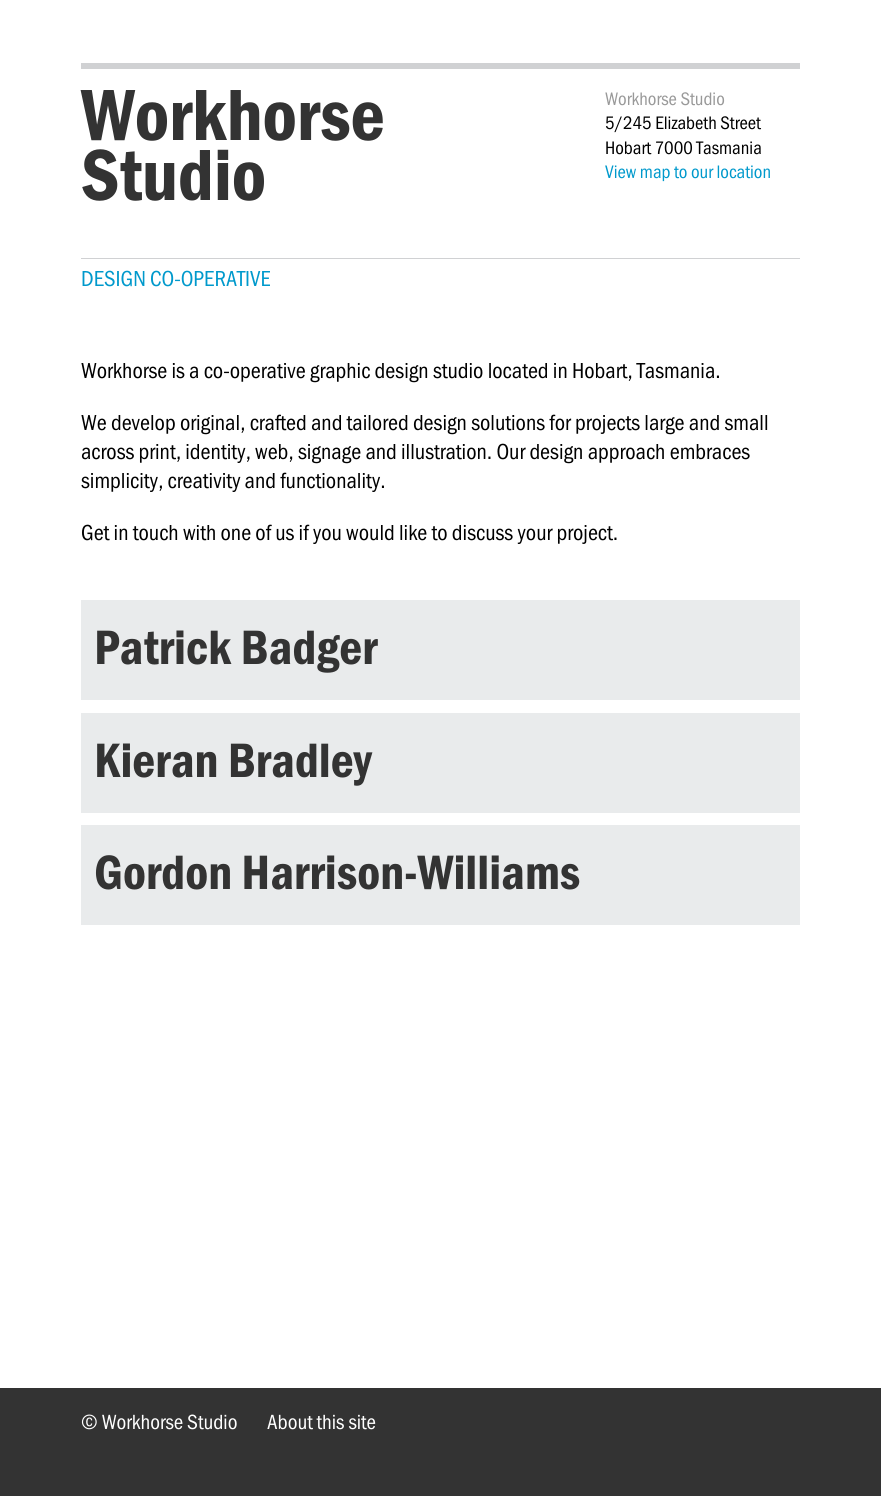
import math
import cairo

surface = cairo.ImageSurface(cairo.FORMAT_RGB24, 881, 1496)
ctx = cairo.Context(surface)
options = cairo.FontOptions()
options.set_hint_metrics(cairo.HINT_METRICS_OFF)
options.set_hint_style(cairo.HINT_STYLE_NONE)
ctx.set_font_options(options)
ctx.set_miter_limit(4)


ctx.set_source_rgb(1, 1, 1)
ctx.paint()
ctx.set_source_rgb(0.816, 0.82, 0.827)
ctx.rectangle(81, 63, 719, 6)
ctx.fill()
ctx.select_font_face("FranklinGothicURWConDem")
ctx.set_font_size(75)
ctx.set_source_rgb(0.2, 0.2, 0.2)
ctx.move_to(81, 140)
ctx.show_text("Workhorse")
ctx.move_to(81, 200)
ctx.show_text("Studio")
ctx.select_font_face("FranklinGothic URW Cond")
ctx.set_font_size(18.75)
ctx.set_source_rgb(0.6, 0.6, 0.6)
ctx.move_to(605, 105)
ctx.show_text("Workhorse Studio")
ctx.set_source_rgb(0, 0, 0)
ctx.move_to(605, 129)
ctx.show_text("5/245 Elizabeth Street")
ctx.move_to(605, 154)
ctx.show_text("Hobart 7000 Tasmania")
ctx.set_source_rgb(0, 0.6, 0.8)
ctx.move_to(605, 178)
ctx.show_text("View map to our location")
ctx.set_source_rgb(0.816, 0.82, 0.827)
ctx.rectangle(81, 258, 719, 1)
ctx.fill()
ctx.set_font_size(22.5)
ctx.set_source_rgb(0, 0.6, 0.8)
ctx.move_to(81, 286)
ctx.show_text("DESIGN CO-OPERATIVE")
ctx.set_source_rgb(0, 0, 0)
ctx.move_to(81, 378)
ctx.show_text("Workhorse is a co-operative graphic design studio located in Hobart, Tasmania.")
ctx.move_to(81, 430)
ctx.show_text("We develop original, crafted and tailored design solutions for projects large and small")
ctx.move_to(81, 459)
ctx.show_text("across print, identity, web, signage and illustration. Our design approach embraces")
ctx.move_to(81, 488)
ctx.show_text("simplicity, creativity and functionality.")
ctx.move_to(81, 540)
ctx.show_text("Get in touch with one of us if you would like to discuss your project.")
ctx.set_source_rgb(0.914, 0.918, 0.925)
ctx.rectangle(81, 600, 719, 100)
ctx.fill()
ctx.select_font_face("FranklinGothicURWConDem")
ctx.set_font_size(50)
ctx.set_source_rgb(0.2, 0.2, 0.2)
ctx.move_to(94, 664)
ctx.show_text("Patrick Badger")
ctx.set_source_rgb(0.914, 0.918, 0.925)
ctx.rectangle(81, 713, 719, 100)
ctx.fill()
ctx.set_source_rgb(0.2, 0.2, 0.2)
ctx.move_to(94, 777)
ctx.show_text("Kieran Bradley")
ctx.set_source_rgb(0.914, 0.918, 0.925)
ctx.rectangle(81, 825, 719, 100)
ctx.fill()
ctx.set_source_rgb(0.2, 0.2, 0.2)
ctx.move_to(94, 889)
ctx.show_text("Gordon Harrison-Williams")
ctx.rectangle(0, 1388, 881, 108)
ctx.fill()
ctx.select_font_face("FranklinGothic URW Cond")
ctx.set_font_size(21.25)
ctx.set_source_rgb(1, 1, 1)
ctx.move_to(81, 1429)
ctx.show_text("© Workhorse Studio")
ctx.move_to(267, 1429)
ctx.show_text("About this site")
surface.write_to_png("page.png")
